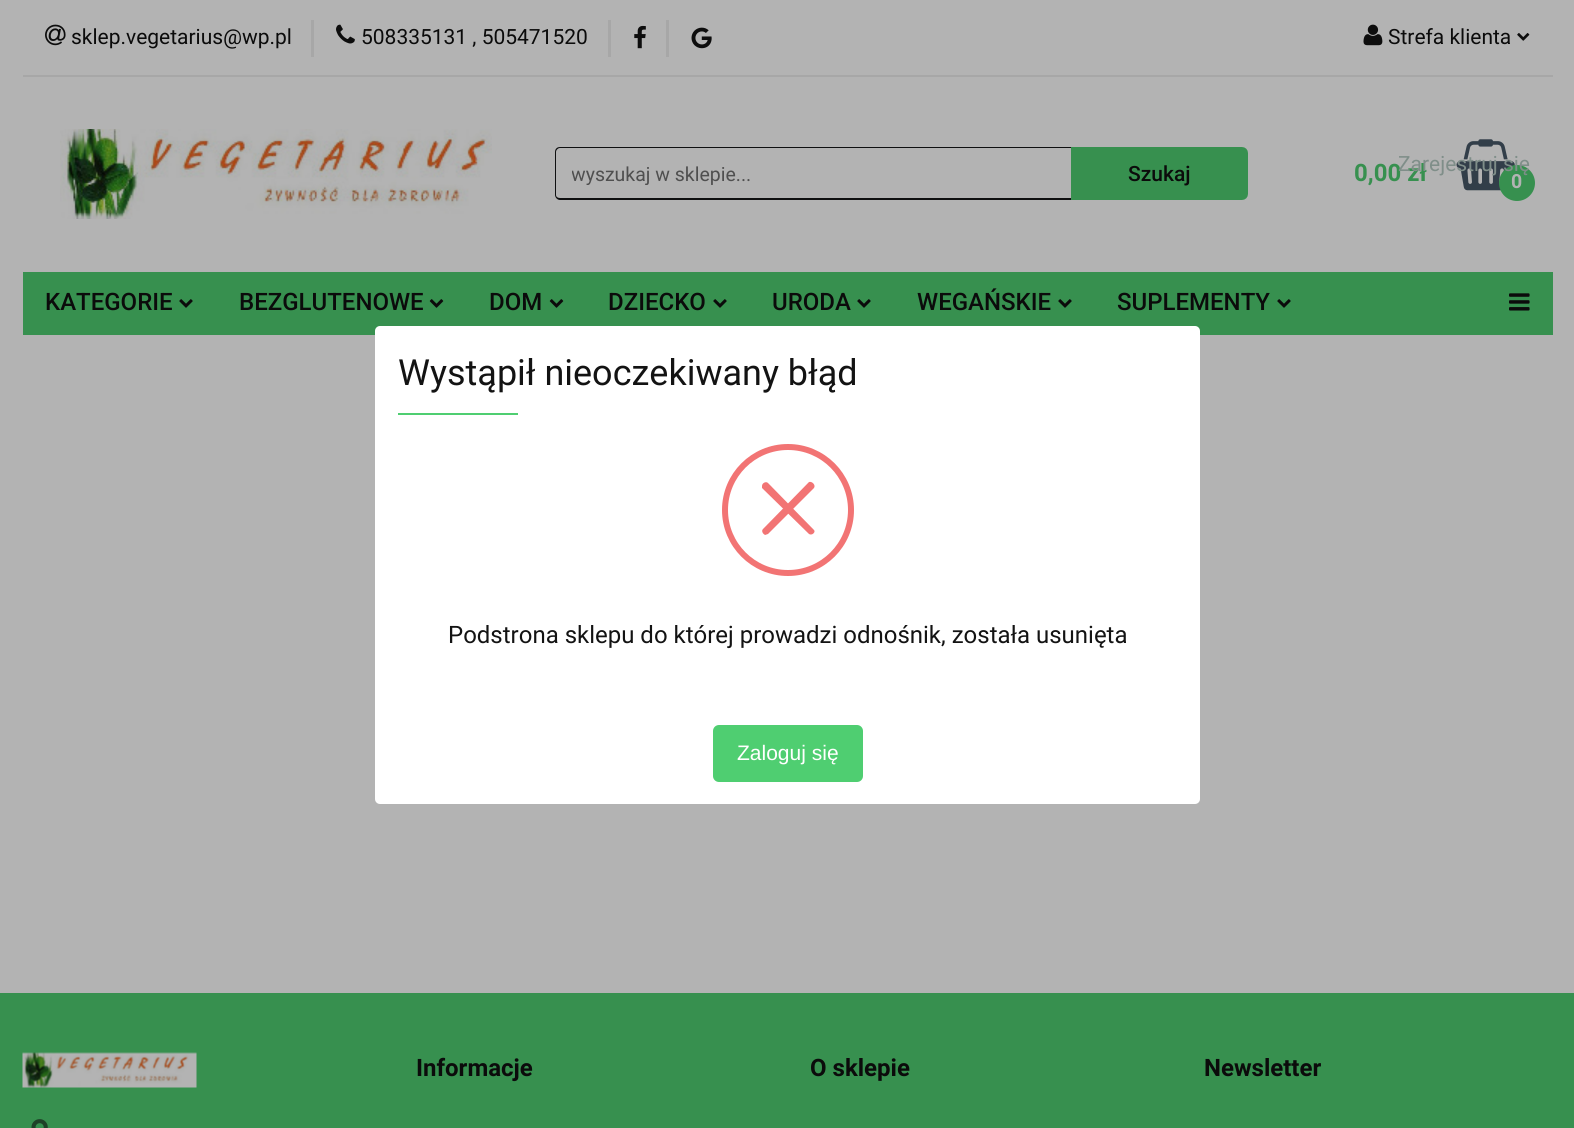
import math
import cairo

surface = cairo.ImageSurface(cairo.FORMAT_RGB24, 1574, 1128)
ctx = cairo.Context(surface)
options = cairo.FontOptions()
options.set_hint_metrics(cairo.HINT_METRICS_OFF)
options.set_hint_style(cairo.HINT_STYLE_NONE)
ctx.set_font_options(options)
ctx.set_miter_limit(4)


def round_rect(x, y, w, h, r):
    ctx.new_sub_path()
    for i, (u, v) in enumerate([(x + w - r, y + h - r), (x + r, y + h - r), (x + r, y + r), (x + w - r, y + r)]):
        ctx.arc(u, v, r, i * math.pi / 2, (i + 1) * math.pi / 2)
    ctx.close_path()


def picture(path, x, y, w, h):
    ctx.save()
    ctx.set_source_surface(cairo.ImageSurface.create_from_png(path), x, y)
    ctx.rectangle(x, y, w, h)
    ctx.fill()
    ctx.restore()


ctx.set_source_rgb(0.702, 0.702, 0.702)
ctx.paint()
ctx.set_source_rgb(0.655, 0.655, 0.655)
ctx.rectangle(23, 75, 1530, 2)
ctx.fill()
picture("img1.png", 45, 24, 21, 22)
ctx.select_font_face("Roboto")
ctx.set_font_size(21)
ctx.set_source_rgb(0.043, 0.043, 0.043)
ctx.move_to(71, 44)
ctx.show_text("sklep.vegetarius@wp.pl")
ctx.set_source_rgb(0.655, 0.655, 0.655)
ctx.rectangle(311, 20, 3, 37)
ctx.fill()
picture("img2.png", 336, 24, 19, 20)
ctx.set_source_rgb(0.043, 0.043, 0.043)
ctx.move_to(361, 44)
ctx.show_text("508335131 , 505471520")
ctx.set_source_rgb(0.655, 0.655, 0.655)
ctx.rectangle(608, 20, 3, 37)
ctx.fill()
picture("img3.png", 634, 25, 12, 24)
ctx.rectangle(666, 20, 3, 37)
ctx.fill()
picture("img4.png", 691, 27, 21, 22)
picture("img5.png", 1363, 24, 20, 22)
ctx.set_source_rgb(0.043, 0.043, 0.043)
ctx.move_to(1388, 44)
ctx.show_text("Strefa klienta")
picture("img6.png", 1517, 33, 13, 8)
ctx.select_font_face("Roboto", cairo.FONT_SLANT_NORMAL, cairo.FONT_WEIGHT_BOLD)
ctx.set_font_size(24)
ctx.set_source_rgb(0.216, 0.565, 0.31)
ctx.move_to(1354, 181)
ctx.show_text("0,00 zł")
picture("img8.png", 1456, 139, 59, 52)
ctx.arc(1517, 183, 18, 0, 2 * math.pi)
ctx.fill()
ctx.select_font_face("Roboto")
ctx.set_font_size(21)
ctx.set_source_rgb(0.498, 0.557, 0.537)
ctx.move_to(1398, 171)
ctx.show_text("Zarejestruj się")
picture("img7.png", 60, 129, 432, 90)
ctx.set_source_rgb(0.059, 0.063, 0.067)
ctx.set_fill_rule(cairo.FILL_RULE_EVEN_ODD)
ctx.new_path()
ctx.move_to(560, 147)
ctx.line_to(1071, 147)
ctx.line_to(1071, 200)
ctx.line_to(560, 200)
ctx.curve_to(557, 200, 555, 197, 555, 195)
ctx.line_to(555, 152)
ctx.curve_to(555, 149, 557, 147, 560, 147)
ctx.close_path()
ctx.move_to(560, 148)
ctx.line_to(1071, 148)
ctx.line_to(1071, 198)
ctx.line_to(560, 198)
ctx.curve_to(558, 198, 556, 197, 556, 195)
ctx.line_to(556, 152)
ctx.curve_to(556, 150, 558, 148, 560, 148)
ctx.close_path()
ctx.fill()
ctx.save()
ctx.set_fill_rule(cairo.FILL_RULE_WINDING)
ctx.rectangle(572, 162, 484, 23)
ctx.clip()
ctx.set_font_size(19.5)
ctx.set_source_rgb(0.31, 0.31, 0.31)
ctx.move_to(571, 181)
ctx.show_text("wyszukaj w sklepie...")
ctx.restore()
ctx.set_source_rgb(0.216, 0.565, 0.31)
ctx.new_path()
ctx.move_to(1073.5, 149.5)
ctx.line_to(1242, 149.5)
ctx.curve_to(1244, 149.5, 1245.5, 151, 1245.5, 153)
ctx.line_to(1245.5, 194)
ctx.curve_to(1245.5, 196, 1244, 197.5, 1242, 197.5)
ctx.line_to(1073.5, 197.5)
ctx.close_path()
ctx.fill_preserve()
ctx.set_line_width(5)
ctx.stroke()
ctx.select_font_face("Roboto Medium")
ctx.set_source_rgb(0.043, 0.043, 0.043)
ctx.move_to(1128, 181)
ctx.show_text("Szukaj")
ctx.select_font_face("Roboto", cairo.FONT_SLANT_NORMAL, cairo.FONT_WEIGHT_BOLD)
ctx.set_font_size(19.5)
ctx.set_source_rgb(0.702, 0.702, 0.702)
ctx.move_to(1511, 188)
ctx.show_text("0")
ctx.set_source_rgb(0.216, 0.565, 0.31)
ctx.rectangle(23, 272, 1530, 63)
ctx.fill()
ctx.select_font_face("Roboto Medium")
ctx.set_font_size(24)
ctx.set_source_rgb(0.043, 0.043, 0.043)
ctx.move_to(45, 310)
ctx.show_text("KATEGORIE")
picture("img9.png", 179, 299, 14, 9)
ctx.move_to(239, 310)
ctx.show_text("BEZGLUTENOWE")
picture("img10.png", 429, 299, 15, 9)
ctx.move_to(489, 310)
ctx.show_text("DOM")
picture("img10.png", 549, 299, 15, 9)
ctx.move_to(608, 310)
ctx.show_text("DZIECKO")
picture("img9.png", 713, 299, 14, 9)
ctx.move_to(772, 310)
ctx.show_text("URODA")
picture("img9.png", 857, 299, 14, 9)
ctx.move_to(917, 310)
ctx.show_text("WEGAŃSKIE")
picture("img9.png", 1058, 299, 14, 9)
ctx.move_to(1117, 310)
ctx.show_text("SUPLEMENTY")
picture("img9.png", 1277, 299, 14, 9)
picture("img11.png", 1509, 293, 21, 18)
ctx.set_source_rgb(0.216, 0.565, 0.31)
ctx.rectangle(0, 993, 1574, 135)
ctx.fill()
picture("img12.png", 22, 1052, 175, 36)
picture("img13.png", 31, 1119, 17, 9)
ctx.select_font_face("Roboto", cairo.FONT_SLANT_NORMAL, cairo.FONT_WEIGHT_BOLD)
ctx.set_source_rgb(0.043, 0.043, 0.043)
ctx.move_to(416, 1076)
ctx.show_text("Informacje")
ctx.move_to(810, 1076)
ctx.show_text("O sklepie")
ctx.move_to(1204, 1076)
ctx.show_text("Newsletter")
ctx.set_source_rgb(1, 1, 1)
round_rect(375, 326, 825, 478, 5)
ctx.fill()
ctx.select_font_face("Roboto")
ctx.set_font_size(36)
ctx.set_source_rgb(0.075, 0.075, 0.075)
ctx.move_to(398, 385)
ctx.show_text("Wystąpił nieoczekiwany błąd")
ctx.set_source_rgb(0.31, 0.808, 0.443)
ctx.rectangle(398, 413, 120, 2)
ctx.fill()
ctx.arc(788, 510, 63, 0, 2 * math.pi)
ctx.set_source_rgb(0.949, 0.455, 0.455)
ctx.set_line_width(6)
ctx.stroke()
ctx.set_fill_rule(cairo.FILL_RULE_WINDING)
ctx.new_path()
ctx.move_to(768, 483)
ctx.line_to(814, 530)
ctx.curve_to(816, 532, 812, 536, 809, 534)
ctx.line_to(762, 488)
ctx.line_to(762, 486)
ctx.curve_to(762, 483, 766, 481, 768, 483)
ctx.close_path()
ctx.fill()
ctx.new_path()
ctx.move_to(763, 529)
ctx.line_to(809, 482)
ctx.curve_to(812, 481, 816, 485, 814, 488)
ctx.line_to(768, 534)
ctx.line_to(765, 535)
ctx.curve_to(763, 534, 761, 531, 763, 529)
ctx.close_path()
ctx.fill()
ctx.set_font_size(24)
ctx.set_source_rgb(0.075, 0.075, 0.075)
ctx.move_to(448, 643)
ctx.show_text("Podstrona sklepu do której prowadzi odnośnik, została usunięta")
ctx.set_source_rgb(0.31, 0.808, 0.443)
round_rect(713, 725, 150, 57, 6)
ctx.fill()
ctx.select_font_face("Liberation Sans")
ctx.set_font_size(21)
ctx.set_source_rgb(1, 1, 1)
ctx.move_to(737, 760)
ctx.show_text("Zaloguj się")
surface.write_to_png("page.png")
